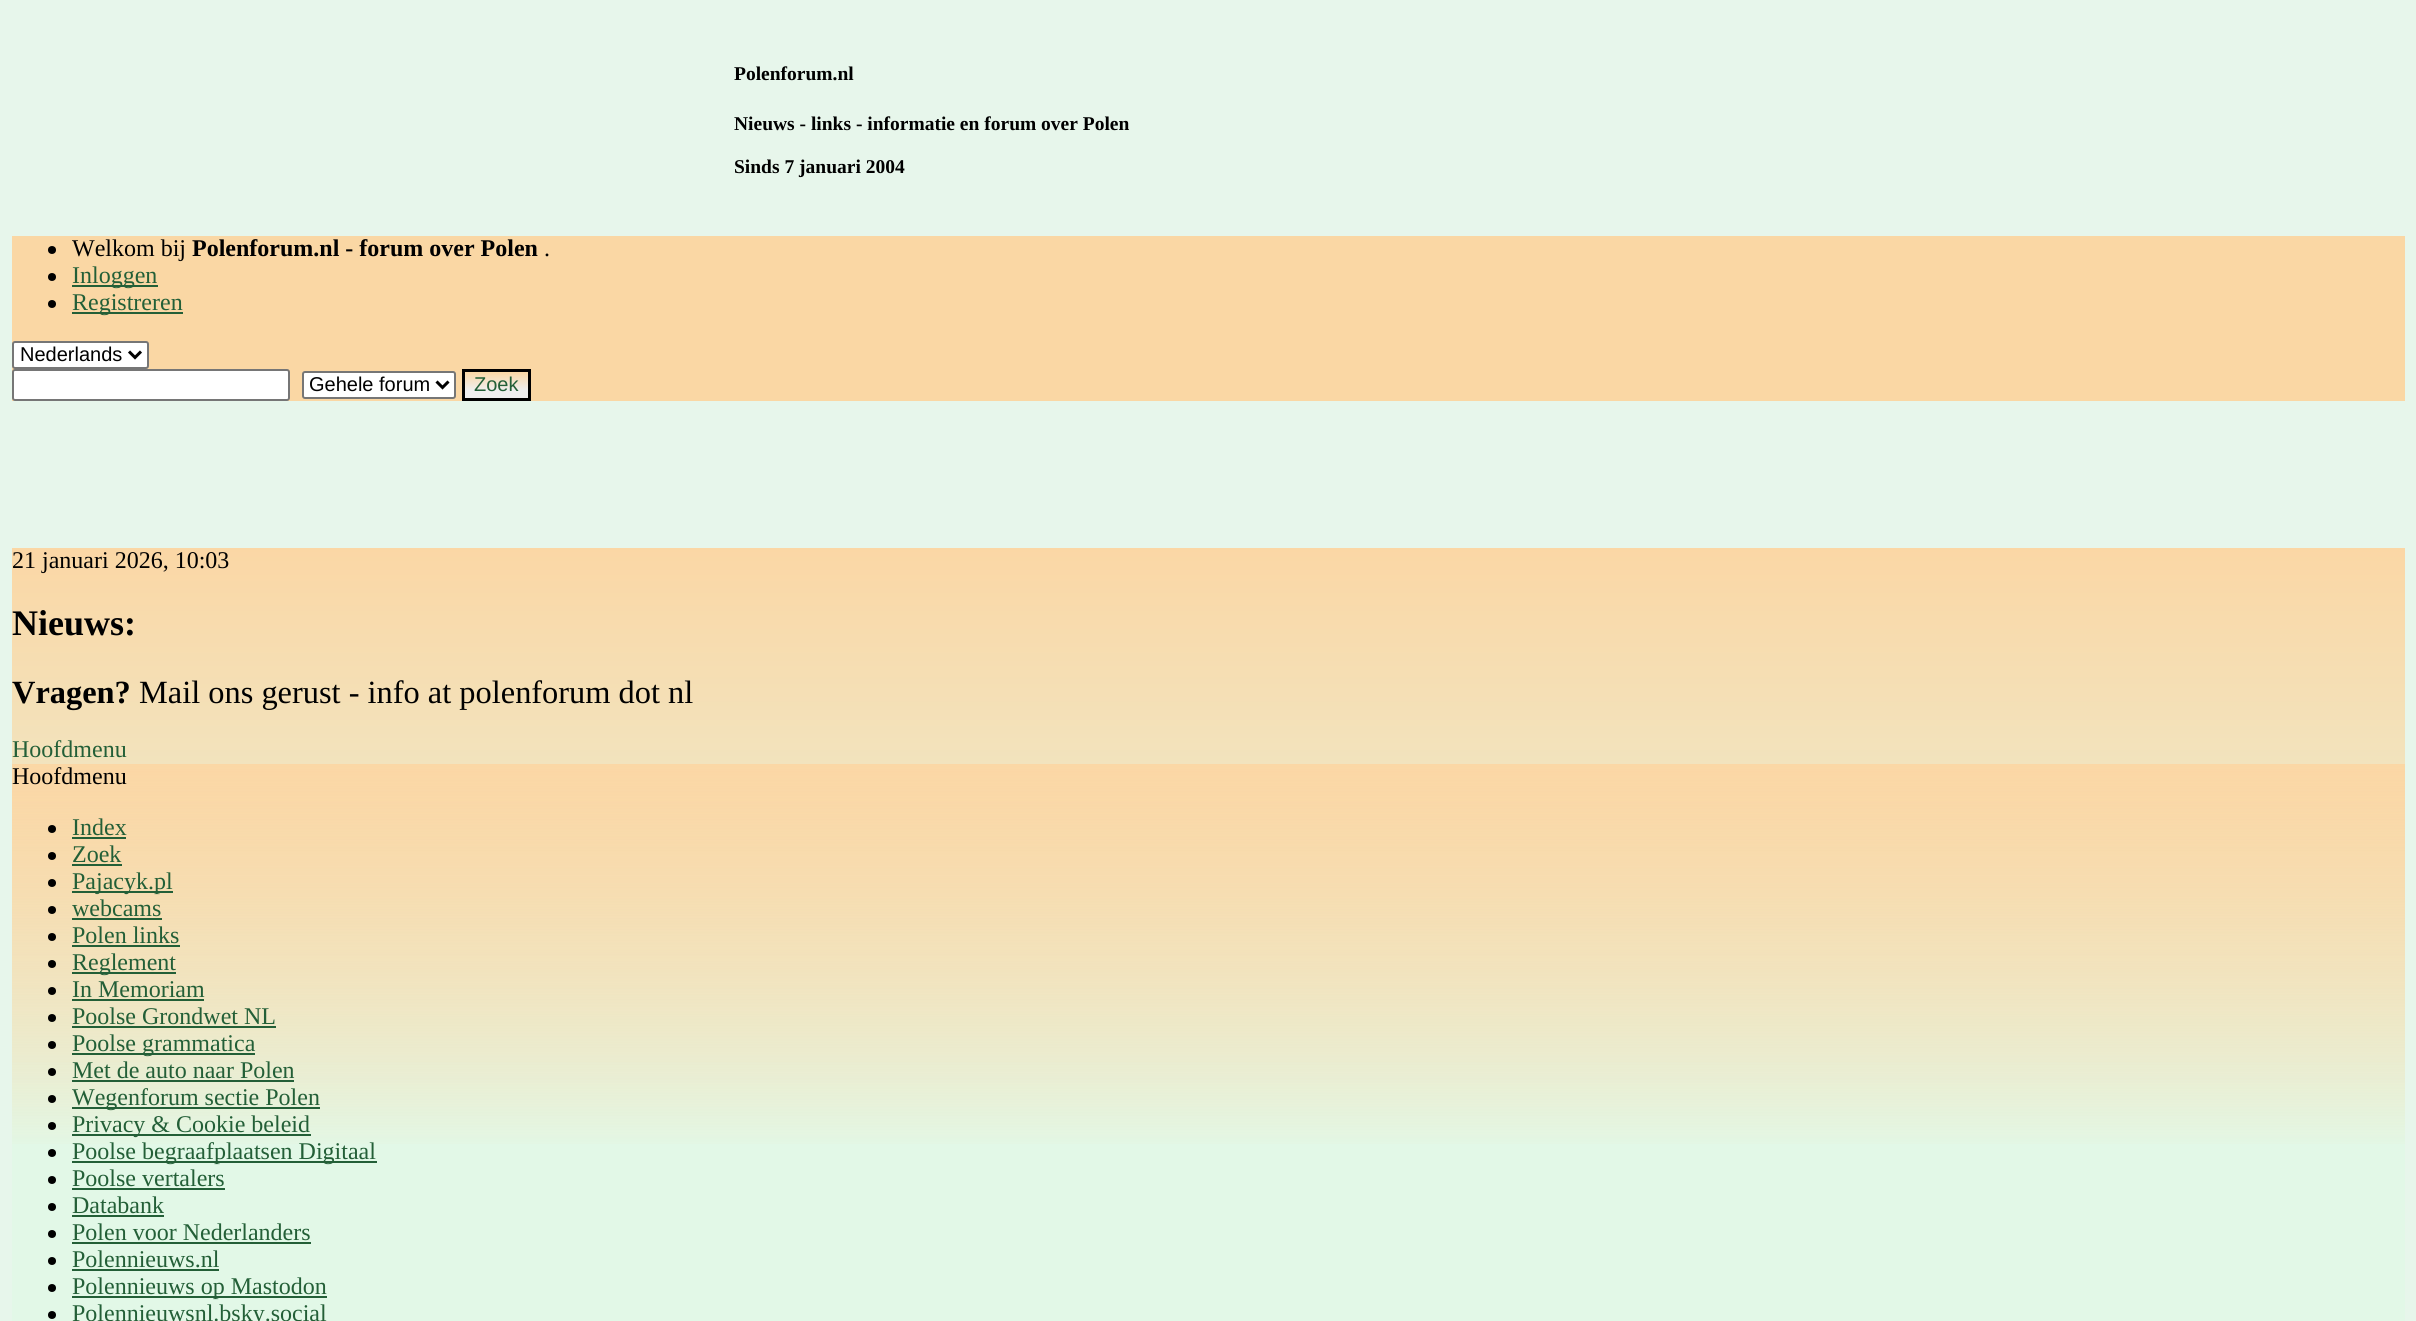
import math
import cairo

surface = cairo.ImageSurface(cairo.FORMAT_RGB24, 2416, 1321)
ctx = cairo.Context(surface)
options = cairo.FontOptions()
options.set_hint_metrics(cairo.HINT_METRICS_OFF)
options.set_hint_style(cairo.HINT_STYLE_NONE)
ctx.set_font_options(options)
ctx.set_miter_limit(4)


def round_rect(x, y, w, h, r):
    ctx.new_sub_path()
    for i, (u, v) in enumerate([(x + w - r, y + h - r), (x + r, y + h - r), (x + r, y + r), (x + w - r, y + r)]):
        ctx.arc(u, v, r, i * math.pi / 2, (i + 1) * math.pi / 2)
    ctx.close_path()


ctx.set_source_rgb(0.906, 0.961, 0.918)
ctx.paint()
ctx.select_font_face("Liberation Serif", cairo.FONT_SLANT_NORMAL, cairo.FONT_WEIGHT_BOLD)
ctx.set_font_size(19.5)
ctx.set_source_rgb(0, 0, 0)
ctx.move_to(734, 80)
ctx.show_text("Polenforum.nl")
ctx.move_to(734, 130)
ctx.show_text("Nieuws - links - informatie en forum over Polen")
ctx.move_to(734, 173)
ctx.show_text("Sinds 7 januari 2004")
ctx.set_source_rgb(0.98, 0.843, 0.643)
ctx.rectangle(12, 236, 2393, 165)
ctx.fill()
ctx.set_source_rgb(0, 0, 0)
ctx.arc(52, 250, 4, 0, 2 * math.pi)
ctx.fill()
ctx.select_font_face("Liberation Serif")
ctx.set_font_size(24)
ctx.move_to(72, 256)
ctx.show_text("Welkom bij")
ctx.select_font_face("Liberation Serif", cairo.FONT_SLANT_NORMAL, cairo.FONT_WEIGHT_BOLD)
ctx.move_to(192, 256)
ctx.show_text("Polenforum.nl - forum over Polen")
ctx.select_font_face("Liberation Serif")
ctx.move_to(544, 256)
ctx.show_text(".")
ctx.new_path()
ctx.arc(52, 277, 4, 0, 2 * math.pi)
ctx.fill()
ctx.set_source_rgb(0.137, 0.373, 0.216)
ctx.rectangle(72, 285, 86, 2)
ctx.fill()
ctx.move_to(72, 283)
ctx.show_text("Inloggen")
ctx.set_source_rgb(0, 0, 0)
ctx.new_path()
ctx.arc(52, 304, 4, 0, 2 * math.pi)
ctx.fill()
ctx.set_source_rgb(0.137, 0.373, 0.216)
ctx.rectangle(72, 312, 111, 2)
ctx.fill()
ctx.move_to(72, 310)
ctx.show_text("Registreren")
ctx.set_source_rgb(1, 1, 1)
round_rect(13, 342, 135, 26, 2)
ctx.fill_preserve()
ctx.set_source_rgb(0.463, 0.463, 0.463)
ctx.stroke()
ctx.new_path()
ctx.move_to(129, 351.5)
ctx.line_to(135, 357.5)
ctx.line_to(141, 351.5)
ctx.set_source_rgb(0, 0, 0)
ctx.set_line_width(3)
ctx.stroke()
ctx.select_font_face("Liberation Sans")
ctx.set_font_size(20)
ctx.move_to(20, 361)
ctx.show_text("Nederlands")
ctx.set_source_rgb(1, 1, 1)
round_rect(13, 370, 276, 30, 2)
ctx.fill_preserve()
ctx.set_source_rgb(0.463, 0.463, 0.463)
ctx.set_line_width(2)
ctx.stroke()
ctx.set_source_rgb(1, 1, 1)
round_rect(303, 372, 152, 26, 2)
ctx.fill_preserve()
ctx.set_source_rgb(0.463, 0.463, 0.463)
ctx.stroke()
ctx.new_path()
ctx.move_to(436.5, 381.5)
ctx.line_to(442.5, 387.5)
ctx.line_to(448.5, 381.5)
ctx.set_source_rgb(0, 0, 0)
ctx.set_line_width(3)
ctx.stroke()
ctx.move_to(309, 391)
ctx.show_text("Gehele forum")
gradient = cairo.LinearGradient(497, 372, 497, 398)
gradient.add_color_stop_rgba(0, 0.984, 0.843, 0.647, 1)
gradient.add_color_stop_rgba(0.7, 0.937, 0.937, 0.937, 1)
ctx.set_source(gradient)
ctx.rectangle(465, 372, 63, 26)
ctx.fill()
ctx.rectangle(463.5, 370.5, 66, 29)
ctx.set_source_rgb(0, 0, 0)
ctx.stroke()
ctx.set_source_rgb(0.137, 0.373, 0.216)
ctx.move_to(474, 391)
ctx.show_text("Zoek")
gradient = cairo.LinearGradient(1208, 547, 1208, 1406)
gradient.add_color_stop_rgba(0, 0.984, 0.843, 0.647, 1)
gradient.add_color_stop_rgba(0.7, 0.886, 0.973, 0.906, 1)
ctx.set_source(gradient)
ctx.rectangle(12, 548, 2393, 773)
ctx.fill()
ctx.select_font_face("Liberation Serif")
ctx.set_font_size(24)
ctx.set_source_rgb(0, 0, 0)
ctx.move_to(12, 568)
ctx.show_text("21 januari 2026, 10:03")
ctx.select_font_face("Liberation Serif", cairo.FONT_SLANT_NORMAL, cairo.FONT_WEIGHT_BOLD)
ctx.set_font_size(36)
ctx.move_to(12, 635)
ctx.show_text("Nieuws:")
ctx.set_font_size(32.4)
ctx.move_to(12, 703)
ctx.show_text("Vragen?")
ctx.select_font_face("Liberation Serif")
ctx.move_to(139, 703)
ctx.show_text("Mail ons gerust - info at polenforum dot nl")
ctx.set_font_size(24)
ctx.set_source_rgb(0.137, 0.373, 0.216)
ctx.move_to(12, 757)
ctx.show_text("Hoofdmenu")
gradient = cairo.LinearGradient(1208, 763, 1208, 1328)
gradient.add_color_stop_rgba(0, 0.984, 0.843, 0.647, 1)
gradient.add_color_stop_rgba(0.7, 0.984, 0.843, 0.647, 0)
ctx.set_source(gradient)
ctx.rectangle(12, 764, 2393, 380)
ctx.fill()
ctx.set_source_rgb(0, 0, 0)
ctx.move_to(12, 784)
ctx.show_text("Hoofdmenu")
ctx.new_path()
ctx.arc(52, 829, 4, 0, 2 * math.pi)
ctx.fill()
ctx.set_source_rgb(0.137, 0.373, 0.216)
ctx.move_to(72, 835)
ctx.show_text("Index")
ctx.rectangle(72, 837, 54, 2)
ctx.fill()
ctx.set_source_rgb(0, 0, 0)
ctx.arc(52, 856, 4, 0, 2 * math.pi)
ctx.fill()
ctx.set_source_rgb(0.137, 0.373, 0.216)
ctx.move_to(72, 862)
ctx.show_text("Zoek")
ctx.rectangle(72, 864, 50, 2)
ctx.fill()
ctx.set_source_rgb(0, 0, 0)
ctx.arc(52, 883, 4, 0, 2 * math.pi)
ctx.fill()
ctx.set_source_rgb(0.137, 0.373, 0.216)
ctx.rectangle(72, 891, 101, 2)
ctx.fill()
ctx.move_to(72, 889)
ctx.show_text("Pajacyk.pl")
ctx.set_source_rgb(0, 0, 0)
ctx.new_path()
ctx.arc(52, 910, 4, 0, 2 * math.pi)
ctx.fill()
ctx.set_source_rgb(0.137, 0.373, 0.216)
ctx.move_to(72, 916)
ctx.show_text("webcams")
ctx.rectangle(72, 918, 90, 2)
ctx.fill()
ctx.set_source_rgb(0, 0, 0)
ctx.arc(52, 937, 4, 0, 2 * math.pi)
ctx.fill()
ctx.set_source_rgb(0.137, 0.373, 0.216)
ctx.move_to(72, 943)
ctx.show_text("Polen links")
ctx.rectangle(72, 945, 108, 2)
ctx.fill()
ctx.set_source_rgb(0, 0, 0)
ctx.arc(52, 964, 4, 0, 2 * math.pi)
ctx.fill()
ctx.set_source_rgb(0.137, 0.373, 0.216)
ctx.rectangle(72, 972, 104, 2)
ctx.fill()
ctx.move_to(72, 970)
ctx.show_text("Reglement")
ctx.set_source_rgb(0, 0, 0)
ctx.new_path()
ctx.arc(52, 991, 4, 0, 2 * math.pi)
ctx.fill()
ctx.set_source_rgb(0.137, 0.373, 0.216)
ctx.move_to(72, 997)
ctx.show_text("In Memoriam")
ctx.rectangle(72, 999, 132, 2)
ctx.fill()
ctx.set_source_rgb(0, 0, 0)
ctx.arc(52, 1018, 4, 0, 2 * math.pi)
ctx.fill()
ctx.set_source_rgb(0.137, 0.373, 0.216)
ctx.move_to(72, 1024)
ctx.show_text("Poolse Grondwet NL")
ctx.rectangle(72, 1026, 204, 2)
ctx.fill()
ctx.set_source_rgb(0, 0, 0)
ctx.arc(52, 1045, 4, 0, 2 * math.pi)
ctx.fill()
ctx.set_source_rgb(0.137, 0.373, 0.216)
ctx.rectangle(72, 1053, 183, 2)
ctx.fill()
ctx.move_to(72, 1051)
ctx.show_text("Poolse grammatica")
ctx.set_source_rgb(0, 0, 0)
ctx.new_path()
ctx.arc(52, 1072, 4, 0, 2 * math.pi)
ctx.fill()
ctx.set_source_rgb(0.137, 0.373, 0.216)
ctx.move_to(72, 1078)
ctx.show_text("Met de auto naar Polen")
ctx.rectangle(72, 1080, 222, 2)
ctx.fill()
ctx.set_source_rgb(0, 0, 0)
ctx.arc(52, 1099, 4, 0, 2 * math.pi)
ctx.fill()
ctx.set_source_rgb(0.137, 0.373, 0.216)
ctx.rectangle(72, 1107, 248, 2)
ctx.fill()
ctx.move_to(72, 1105)
ctx.show_text("Wegenforum sectie Polen")
ctx.set_source_rgb(0, 0, 0)
ctx.new_path()
ctx.arc(52, 1126, 4, 0, 2 * math.pi)
ctx.fill()
ctx.set_source_rgb(0.137, 0.373, 0.216)
ctx.rectangle(72, 1134, 239, 2)
ctx.fill()
ctx.move_to(72, 1132)
ctx.show_text("Privacy & Cookie beleid")
ctx.set_source_rgb(0, 0, 0)
ctx.new_path()
ctx.arc(52, 1153, 4, 0, 2 * math.pi)
ctx.fill()
ctx.set_source_rgb(0.137, 0.373, 0.216)
ctx.rectangle(72, 1161, 305, 2)
ctx.fill()
ctx.move_to(72, 1159)
ctx.show_text("Poolse begraafplaatsen Digitaal")
ctx.set_source_rgb(0, 0, 0)
ctx.new_path()
ctx.arc(52, 1180, 4, 0, 2 * math.pi)
ctx.fill()
ctx.set_source_rgb(0.137, 0.373, 0.216)
ctx.move_to(72, 1186)
ctx.show_text("Poolse vertalers")
ctx.rectangle(72, 1188, 153, 2)
ctx.fill()
ctx.set_source_rgb(0, 0, 0)
ctx.arc(52, 1207, 4, 0, 2 * math.pi)
ctx.fill()
ctx.set_source_rgb(0.137, 0.373, 0.216)
ctx.move_to(72, 1213)
ctx.show_text("Databank")
ctx.rectangle(72, 1215, 92, 2)
ctx.fill()
ctx.set_source_rgb(0, 0, 0)
ctx.arc(52, 1234, 4, 0, 2 * math.pi)
ctx.fill()
ctx.set_source_rgb(0.137, 0.373, 0.216)
ctx.move_to(72, 1240)
ctx.show_text("Polen voor Nederlanders")
ctx.rectangle(72, 1242, 239, 2)
ctx.fill()
ctx.set_source_rgb(0, 0, 0)
ctx.arc(52, 1261, 4, 0, 2 * math.pi)
ctx.fill()
ctx.set_source_rgb(0.137, 0.373, 0.216)
ctx.move_to(72, 1267)
ctx.show_text("Polennieuws.nl")
ctx.rectangle(72, 1269, 147, 2)
ctx.fill()
ctx.set_source_rgb(0, 0, 0)
ctx.arc(52, 1288, 4, 0, 2 * math.pi)
ctx.fill()
ctx.set_source_rgb(0.137, 0.373, 0.216)
ctx.rectangle(72, 1296, 255, 2)
ctx.fill()
ctx.move_to(72, 1294)
ctx.show_text("Polennieuws op Mastodon")
ctx.set_source_rgb(0, 0, 0)
ctx.new_path()
ctx.arc(52, 1315, 4, 0, 2 * math.pi)
ctx.fill()
ctx.set_source_rgb(0.137, 0.373, 0.216)
ctx.move_to(72, 1321)
ctx.show_text("Polennieuwsnl.bsky.social")
surface.write_to_png("page.png")
